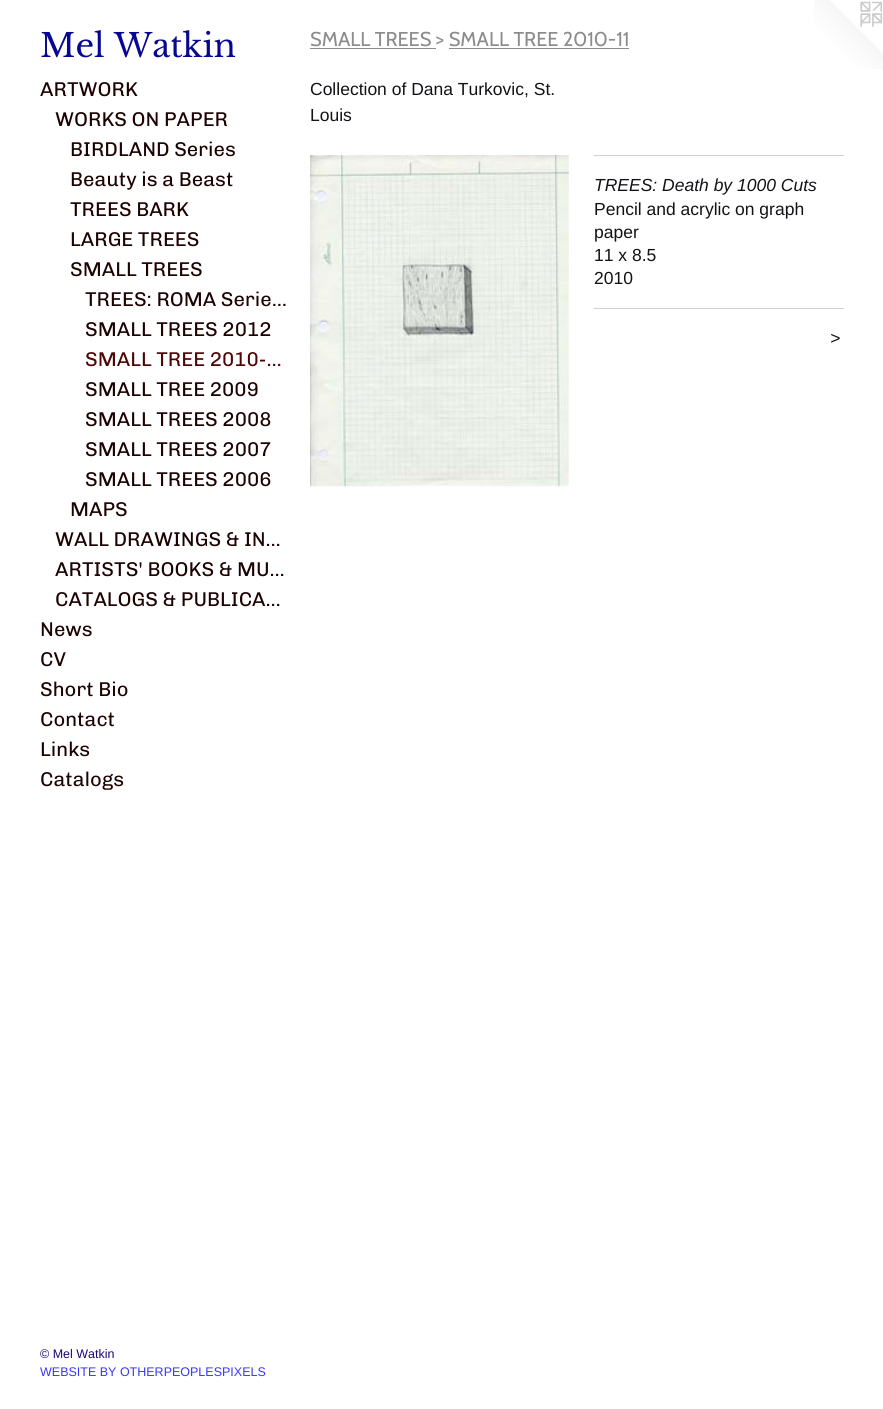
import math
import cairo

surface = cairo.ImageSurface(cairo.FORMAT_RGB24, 883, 1409)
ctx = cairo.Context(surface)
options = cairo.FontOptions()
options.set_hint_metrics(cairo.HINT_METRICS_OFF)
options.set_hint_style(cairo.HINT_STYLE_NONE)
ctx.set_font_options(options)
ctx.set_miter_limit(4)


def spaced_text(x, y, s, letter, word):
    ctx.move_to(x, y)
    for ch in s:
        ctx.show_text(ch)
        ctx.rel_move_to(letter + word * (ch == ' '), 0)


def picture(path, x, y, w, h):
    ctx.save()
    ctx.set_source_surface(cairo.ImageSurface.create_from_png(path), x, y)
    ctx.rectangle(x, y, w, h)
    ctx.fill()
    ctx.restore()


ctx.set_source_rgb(1, 1, 1)
ctx.paint()
ctx.select_font_face("Libre Baskerville")
ctx.set_font_size(32.5)
ctx.set_source_rgb(0.031, 0.031, 0.569)
ctx.move_to(40, 57)
ctx.show_text("Mel Watkin")
ctx.select_font_face("Chivo Medium")
ctx.set_font_size(20)
ctx.set_source_rgb(0.114, 0.008, 0.008)
ctx.move_to(40, 96)
ctx.show_text("ARTWORK")
ctx.move_to(55, 126)
ctx.show_text("WORKS ON PAPER")
ctx.move_to(70, 156)
ctx.show_text("BIRDLAND Series")
ctx.move_to(70, 186)
ctx.show_text("Beauty is a Beast")
ctx.move_to(70, 216)
ctx.show_text("TREES BARK")
ctx.move_to(70, 246)
ctx.show_text("LARGE TREES")
ctx.move_to(70, 276)
ctx.show_text("SMALL TREES")
ctx.move_to(85, 306)
ctx.show_text("TREES: ROMA Serie…")
ctx.move_to(85, 336)
ctx.show_text("SMALL TREES 2012")
ctx.set_source_rgb(0.302, 0.02, 0.02)
ctx.move_to(85, 366)
ctx.show_text("SMALL TREE 2010-…")
ctx.set_source_rgb(0.114, 0.008, 0.008)
ctx.move_to(85, 396)
ctx.show_text("SMALL TREE 2009")
ctx.move_to(85, 426)
ctx.show_text("SMALL TREES 2008")
ctx.move_to(85, 456)
ctx.show_text("SMALL TREES 2007")
ctx.move_to(85, 486)
ctx.show_text("SMALL TREES 2006")
ctx.move_to(70, 516)
ctx.show_text("MAPS")
ctx.move_to(55, 546)
ctx.show_text("WALL DRAWINGS & IN…")
ctx.move_to(55, 576)
ctx.show_text("ARTISTS' BOOKS & MU…")
ctx.move_to(55, 606)
ctx.show_text("CATALOGS & PUBLICA…")
ctx.move_to(40, 636)
ctx.show_text("News")
ctx.move_to(40, 666)
ctx.show_text("CV")
ctx.move_to(40, 696)
ctx.show_text("Short Bio")
ctx.move_to(40, 726)
ctx.show_text("Contact")
ctx.move_to(40, 756)
ctx.show_text("Links")
ctx.move_to(40, 786)
ctx.show_text("Catalogs")
ctx.select_font_face("Liberation Sans")
ctx.set_font_size(12.5)
ctx.set_source_rgb(0.118, 0.024, 0.459)
ctx.move_to(40, 1358)
ctx.show_text("© Mel Watkin")
ctx.set_source_rgb(0.224, 0.216, 0.965)
ctx.move_to(40, 1376)
ctx.show_text("WEBSITE BY OTHERPEOPLESPIXELS")
ctx.select_font_face("Cabin")
ctx.set_font_size(20)
ctx.set_source_rgb(0.549, 0.549, 0.549)
ctx.move_to(310, 46)
ctx.show_text("SMALL TREES > SMALL TREE 2010-11")
ctx.rectangle(310, 48, 126, 1)
ctx.fill()
ctx.rectangle(449, 48, 180, 1)
ctx.fill()
ctx.select_font_face("Liberation Sans")
ctx.set_font_size(17.5)
ctx.set_source_rgb(0.078, 0.071, 0.086)
ctx.move_to(310, 95)
ctx.show_text("Collection of Dana Turkovic, St.")
ctx.move_to(310, 121)
ctx.show_text("Louis")
picture("img1.png", 310, 155, 259, 332)
ctx.set_source_rgb(0.816, 0.816, 0.816)
ctx.rectangle(594, 155, 250, 1)
ctx.fill()
ctx.select_font_face("Liberation Sans", cairo.FONT_SLANT_ITALIC)
ctx.set_source_rgb(0.078, 0.071, 0.086)
ctx.move_to(594, 191)
ctx.show_text("TREES: Death by 1000 Cuts")
ctx.select_font_face("Liberation Sans")
ctx.move_to(594, 215)
ctx.show_text("Pencil and acrylic on graph")
ctx.move_to(594, 238)
ctx.show_text("paper")
ctx.move_to(594, 261)
ctx.show_text("11 x 8.5")
ctx.move_to(594, 284)
ctx.show_text("2010")
ctx.set_source_rgb(0.816, 0.816, 0.816)
ctx.rectangle(594, 308, 250, 1)
ctx.fill()
ctx.select_font_face("Liberation Sans", cairo.FONT_SLANT_ITALIC)
ctx.set_source_rgb(0.078, 0.071, 0.086)
spaced_text(830, 344, ">", 1, 0)
picture("img2.png", 814, 0, 69, 69)
surface.write_to_png("page.png")
